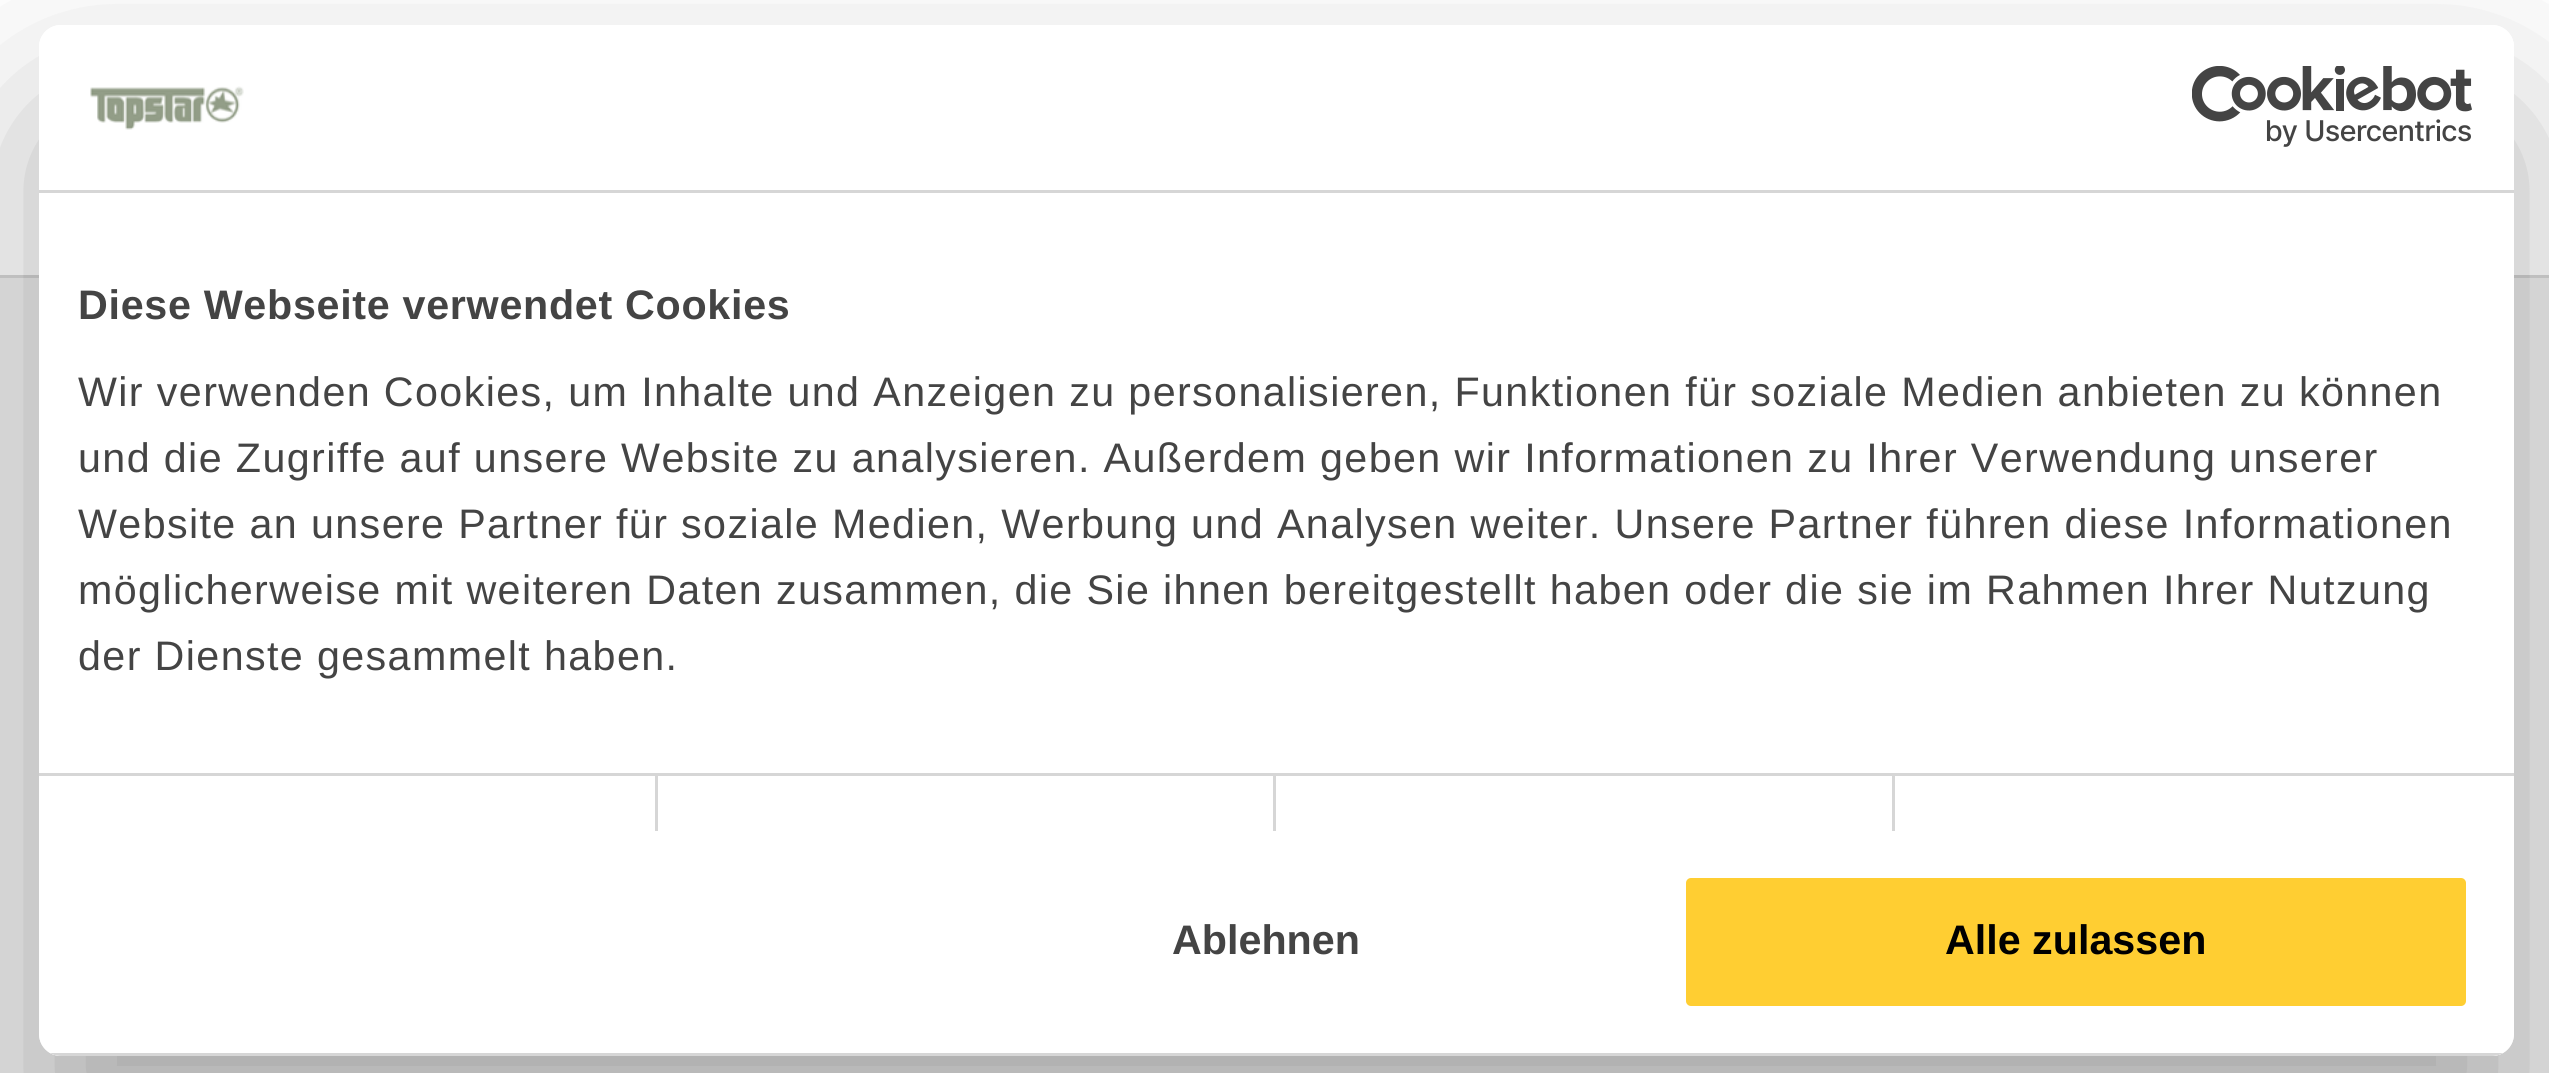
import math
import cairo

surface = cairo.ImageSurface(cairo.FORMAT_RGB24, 2549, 1073)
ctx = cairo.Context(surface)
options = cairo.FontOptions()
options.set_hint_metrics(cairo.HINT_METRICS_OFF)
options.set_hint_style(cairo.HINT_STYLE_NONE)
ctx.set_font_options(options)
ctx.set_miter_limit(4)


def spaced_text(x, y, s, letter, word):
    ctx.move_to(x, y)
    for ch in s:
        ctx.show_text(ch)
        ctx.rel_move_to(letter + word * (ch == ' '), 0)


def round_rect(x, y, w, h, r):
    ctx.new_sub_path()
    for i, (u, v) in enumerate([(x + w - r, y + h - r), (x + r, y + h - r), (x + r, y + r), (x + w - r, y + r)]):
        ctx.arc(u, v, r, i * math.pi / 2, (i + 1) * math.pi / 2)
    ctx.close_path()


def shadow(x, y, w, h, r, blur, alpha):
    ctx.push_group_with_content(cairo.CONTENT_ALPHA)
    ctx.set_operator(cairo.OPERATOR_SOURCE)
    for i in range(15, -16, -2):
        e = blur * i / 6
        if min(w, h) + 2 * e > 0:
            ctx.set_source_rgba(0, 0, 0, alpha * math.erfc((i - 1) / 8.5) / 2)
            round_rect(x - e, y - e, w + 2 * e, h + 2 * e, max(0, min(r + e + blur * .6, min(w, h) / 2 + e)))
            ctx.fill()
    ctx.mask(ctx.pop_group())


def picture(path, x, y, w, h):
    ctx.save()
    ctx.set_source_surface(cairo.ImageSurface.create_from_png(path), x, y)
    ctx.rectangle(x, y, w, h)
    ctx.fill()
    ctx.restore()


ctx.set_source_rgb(0.933, 0.933, 0.933)
ctx.paint()
ctx.set_source_rgb(0.839, 0.839, 0.839)
ctx.rectangle(0, 275, 2549, 3)
ctx.fill()
ctx.set_source_rgb(1, 1, 1)
ctx.rectangle(0, 0, 2549, 275)
ctx.fill()
ctx.save()
ctx.set_fill_rule(cairo.FILL_RULE_EVEN_ODD)
ctx.new_path()
ctx.move_to(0, 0)
ctx.line_to(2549, 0)
ctx.line_to(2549, 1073)
ctx.line_to(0, 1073)
ctx.close_path()
ctx.move_to(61, 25)
ctx.line_to(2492, 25)
ctx.curve_to(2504, 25, 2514, 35, 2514, 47)
ctx.line_to(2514, 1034)
ctx.curve_to(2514, 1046, 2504, 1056, 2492, 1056)
ctx.line_to(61, 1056)
ctx.curve_to(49, 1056, 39, 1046, 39, 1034)
ctx.line_to(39, 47)
ctx.curve_to(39, 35, 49, 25, 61, 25)
ctx.close_path()
ctx.clip()
ctx.set_source_rgb(0, 0, 0)
shadow(39, 113, 2475, 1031, 22, 93.5, 0.3)
ctx.restore()
round_rect(39, 25, 2475, 1031, 22)
ctx.fill()
ctx.set_source_rgb(0.839, 0.839, 0.839)
ctx.rectangle(39, 190, 2475, 3)
ctx.fill()
picture("img1.png", 90, 86, 154, 44)
picture("img2.png", 2192, 66, 280, 81)
ctx.rectangle(39, 773, 2475, 3)
ctx.fill()
ctx.select_font_face("Liberation Sans", cairo.FONT_SLANT_NORMAL, cairo.FONT_WEIGHT_BOLD)
ctx.set_font_size(41.25)
ctx.set_source_rgb(0.267, 0.267, 0.267)
spaced_text(78, 319, "Diese Webseite verwendet Cookies", 0.7, 0)
ctx.select_font_face("Liberation Sans")
spaced_text(78, 406, "Wir verwenden Cookies, um Inhalte und Anzeigen zu personalisieren, Funktionen für soziale Medien anbieten zu können", 1.38, 0)
spaced_text(78, 472, "und die Zugriffe auf unsere Website zu analysieren. Außerdem geben wir Informationen zu Ihrer Verwendung unserer", 1.38, 0)
spaced_text(78, 538, "Website an unsere Partner für soziale Medien, Werbung und Analysen weiter. Unsere Partner führen diese Informationen", 1.38, 0)
spaced_text(78, 604, "möglicherweise mit weiteren Daten zusammen, die Sie ihnen bereitgestellt haben oder die sie im Rahmen Ihrer Nutzung", 1.38, 0)
spaced_text(78, 670, "der Dienste gesammelt haben.", 1.38, 0)
ctx.set_source_rgb(0.839, 0.839, 0.839)
ctx.rectangle(655, 776, 3, 55)
ctx.fill()
ctx.rectangle(1273, 776, 3, 55)
ctx.fill()
ctx.rectangle(1892, 776, 3, 55)
ctx.fill()
ctx.save()
round_rect(39, 25, 2475, 1031, 22)
ctx.clip()
ctx.rectangle(50, 1053, 2453, 3)
ctx.fill()
ctx.restore()
ctx.select_font_face("Liberation Sans", cairo.FONT_SLANT_NORMAL, cairo.FONT_WEIGHT_BOLD)
ctx.set_source_rgb(0.267, 0.267, 0.267)
ctx.move_to(1172, 954)
ctx.show_text("Ablehnen")
ctx.set_source_rgb(1, 0.808, 0.196)
round_rect(1683, 875, 786, 134, 8)
ctx.fill_preserve()
ctx.set_source_rgb(1, 1, 1)
ctx.set_line_width(6)
ctx.stroke()
ctx.set_source_rgb(0, 0, 0)
ctx.move_to(1945, 954)
ctx.show_text("Alle zulassen")
surface.write_to_png("page.png")
